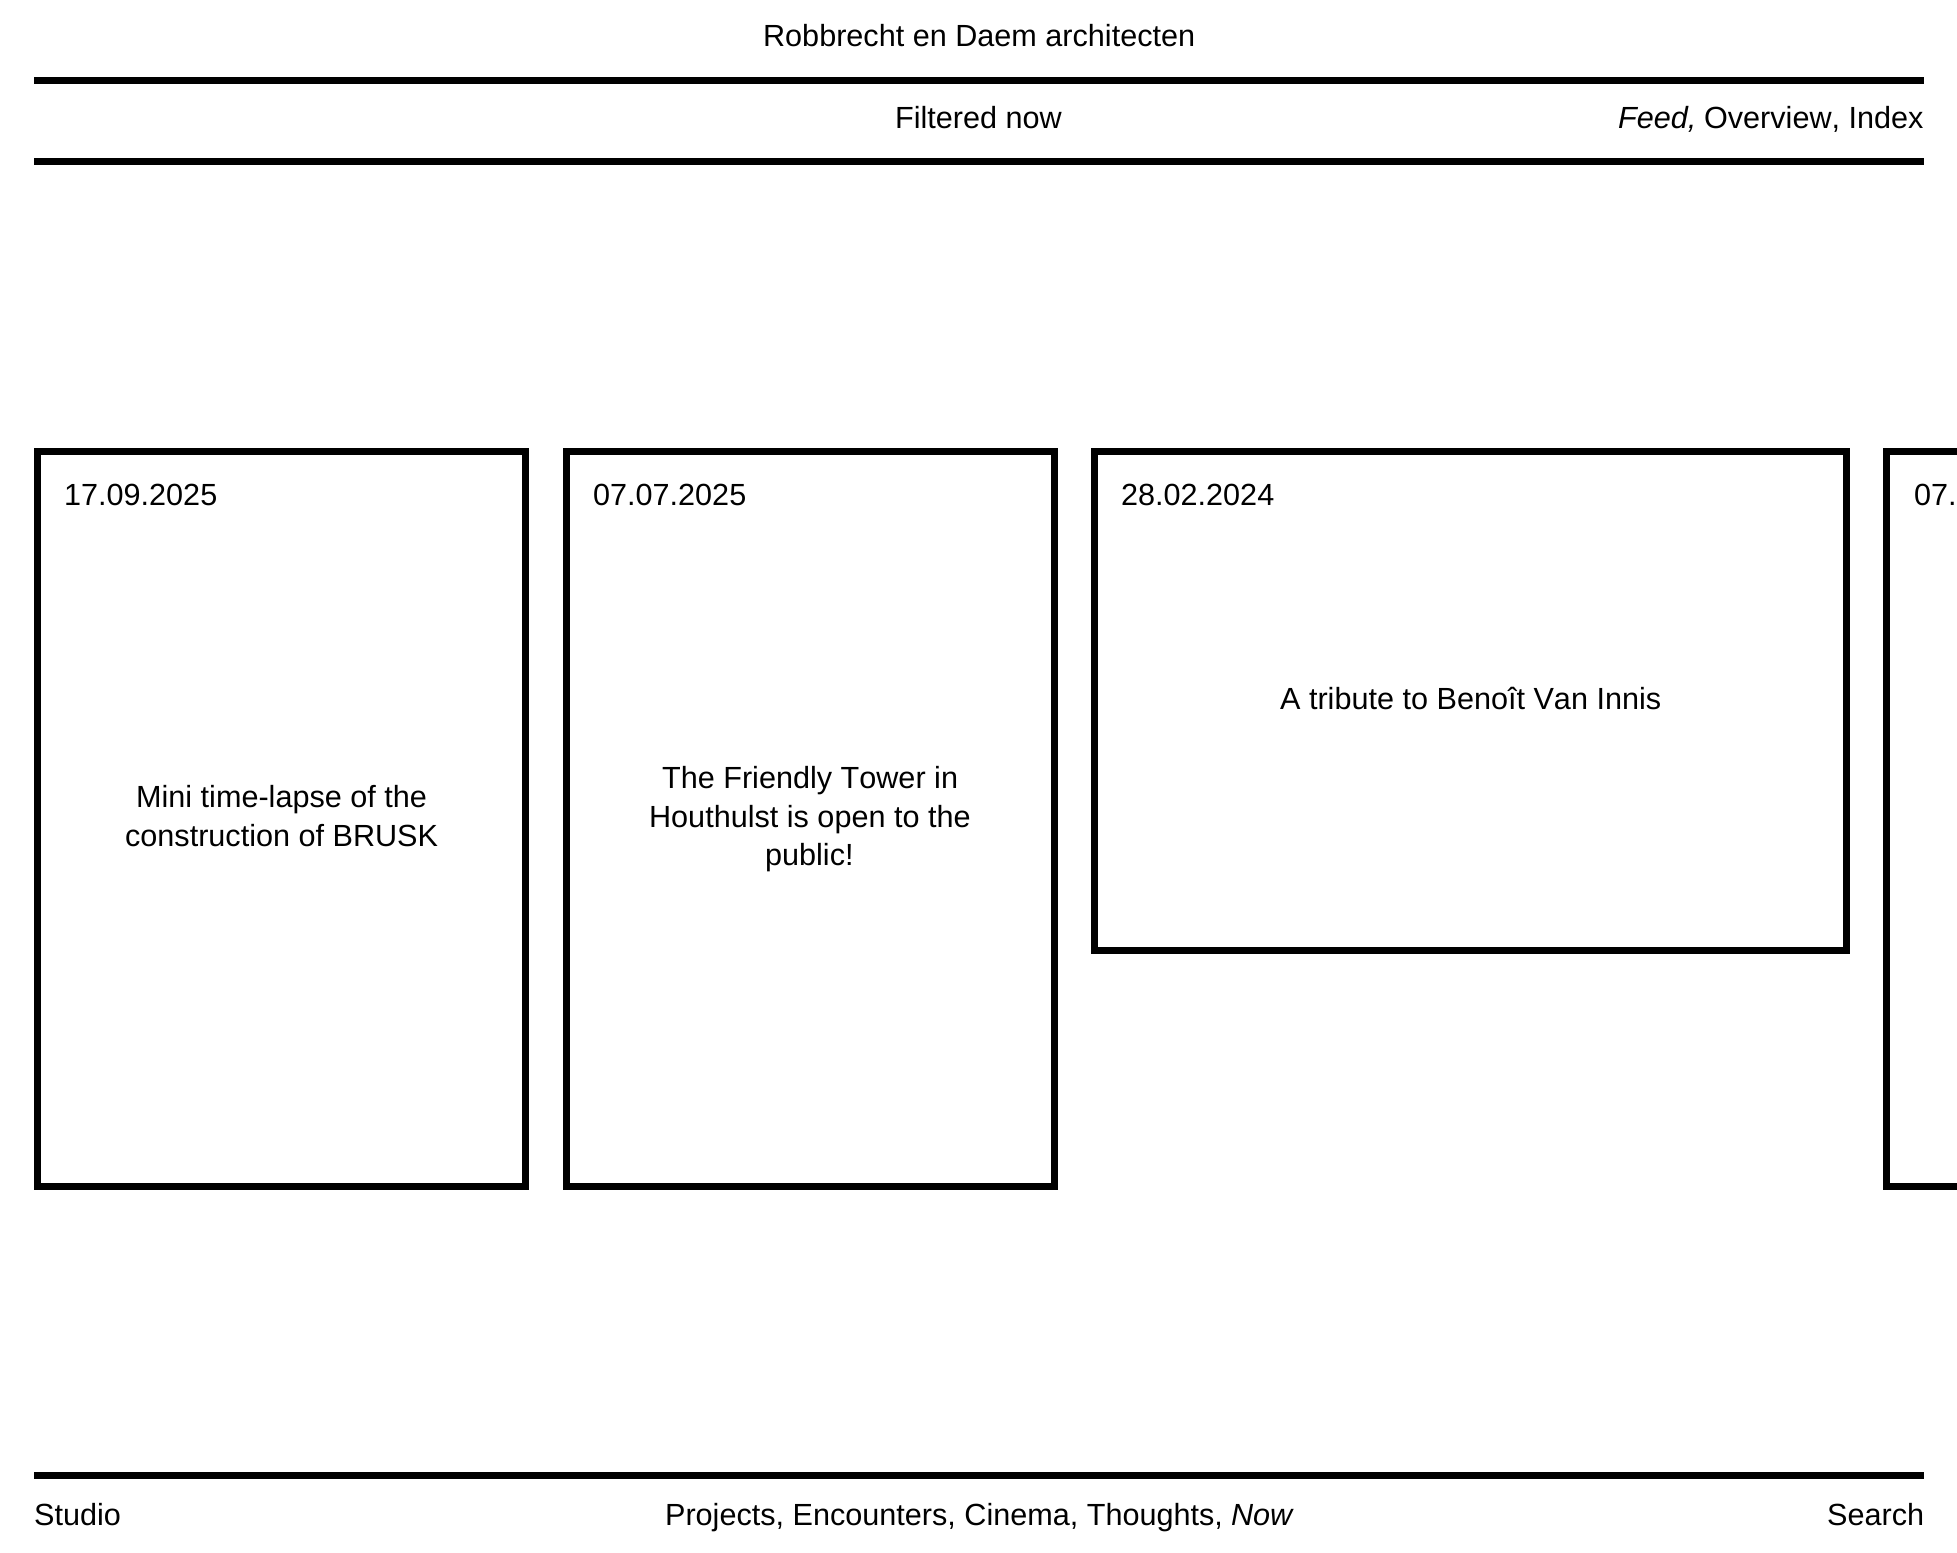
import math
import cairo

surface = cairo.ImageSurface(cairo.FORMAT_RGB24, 1957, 1553)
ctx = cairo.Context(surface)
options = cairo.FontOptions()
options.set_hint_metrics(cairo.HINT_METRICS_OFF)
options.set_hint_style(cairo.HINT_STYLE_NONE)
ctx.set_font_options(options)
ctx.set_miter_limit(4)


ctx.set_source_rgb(1, 1, 1)
ctx.paint()
ctx.select_font_face("Liberation Sans")
ctx.set_font_size(30.6)
ctx.set_source_rgb(0, 0, 0)
ctx.move_to(763, 46)
ctx.show_text("Robbrecht en Daem architecten")
ctx.rectangle(34, 77, 1890, 7)
ctx.fill()
ctx.move_to(895, 128)
ctx.show_text("Filtered now")
ctx.select_font_face("Liberation Sans", cairo.FONT_SLANT_ITALIC)
ctx.move_to(1618, 128)
ctx.show_text("Feed,")
ctx.select_font_face("Liberation Sans")
ctx.move_to(1704, 128)
ctx.show_text("Overview, Index")
ctx.rectangle(34, 158, 1890, 7)
ctx.fill()
ctx.rectangle(37.5, 451.5, 488, 735)
ctx.set_line_width(7)
ctx.stroke()
ctx.move_to(64, 505)
ctx.show_text("17.09.2025")
ctx.move_to(136, 807)
ctx.show_text("Mini time-lapse of the")
ctx.move_to(125, 846)
ctx.show_text("construction of BRUSK")
ctx.rectangle(566.5, 451.5, 488, 735)
ctx.stroke()
ctx.move_to(593, 505)
ctx.show_text("07.07.2025")
ctx.move_to(662, 788)
ctx.show_text("The Friendly Tower in")
ctx.move_to(649, 827)
ctx.show_text("Houthulst is open to the")
ctx.move_to(765, 865)
ctx.show_text("public!")
ctx.rectangle(1094.5, 451.5, 752, 499)
ctx.stroke()
ctx.move_to(1121, 505)
ctx.show_text("28.02.2024")
ctx.move_to(1280, 709)
ctx.show_text("A tribute to Benoît Van Innis")
ctx.rectangle(1886.5, 451.5, 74, 735)
ctx.stroke()
ctx.move_to(1914, 505)
ctx.show_text("07.")
ctx.rectangle(34, 1472, 1890, 7)
ctx.fill()
ctx.move_to(34, 1525)
ctx.show_text("Studio")
ctx.move_to(665, 1525)
ctx.show_text("Projects, Encounters, Cinema, Thoughts,")
ctx.select_font_face("Liberation Sans", cairo.FONT_SLANT_ITALIC)
ctx.move_to(1231, 1525)
ctx.show_text("Now")
ctx.select_font_face("Liberation Sans")
ctx.move_to(1827, 1525)
ctx.show_text("Search")
surface.write_to_png("page.png")
